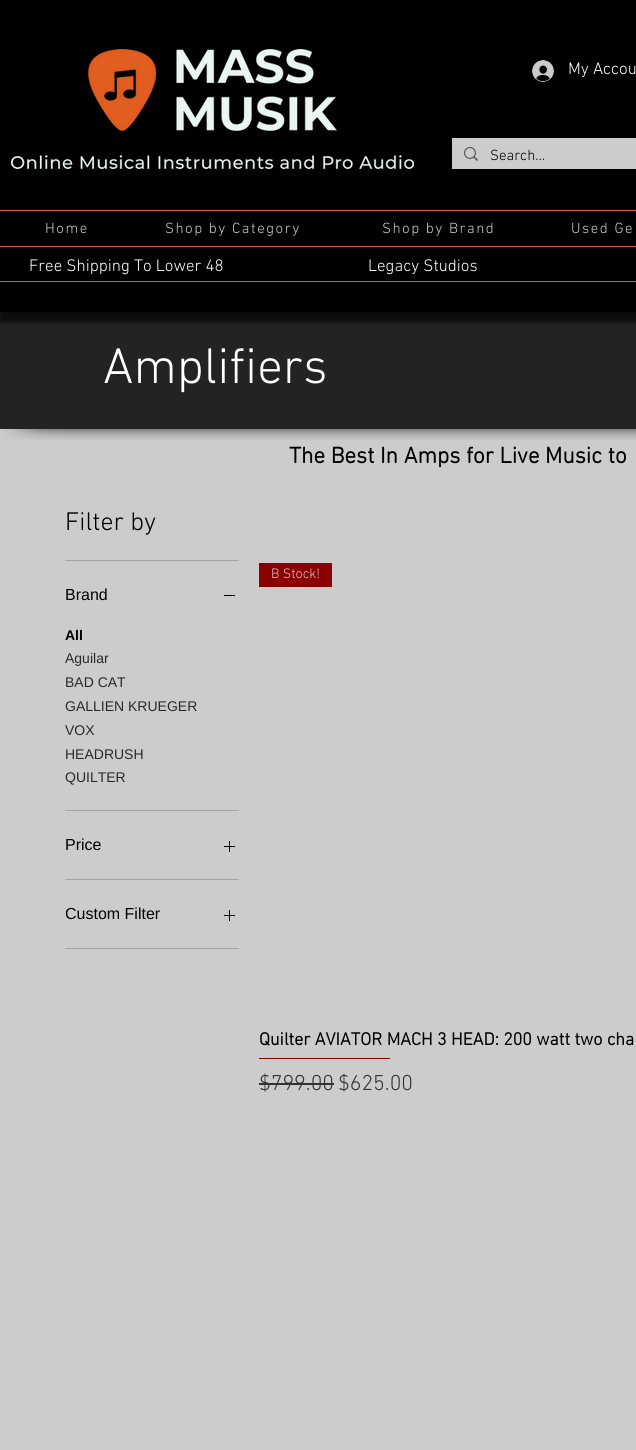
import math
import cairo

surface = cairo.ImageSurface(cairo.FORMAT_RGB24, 636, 1450)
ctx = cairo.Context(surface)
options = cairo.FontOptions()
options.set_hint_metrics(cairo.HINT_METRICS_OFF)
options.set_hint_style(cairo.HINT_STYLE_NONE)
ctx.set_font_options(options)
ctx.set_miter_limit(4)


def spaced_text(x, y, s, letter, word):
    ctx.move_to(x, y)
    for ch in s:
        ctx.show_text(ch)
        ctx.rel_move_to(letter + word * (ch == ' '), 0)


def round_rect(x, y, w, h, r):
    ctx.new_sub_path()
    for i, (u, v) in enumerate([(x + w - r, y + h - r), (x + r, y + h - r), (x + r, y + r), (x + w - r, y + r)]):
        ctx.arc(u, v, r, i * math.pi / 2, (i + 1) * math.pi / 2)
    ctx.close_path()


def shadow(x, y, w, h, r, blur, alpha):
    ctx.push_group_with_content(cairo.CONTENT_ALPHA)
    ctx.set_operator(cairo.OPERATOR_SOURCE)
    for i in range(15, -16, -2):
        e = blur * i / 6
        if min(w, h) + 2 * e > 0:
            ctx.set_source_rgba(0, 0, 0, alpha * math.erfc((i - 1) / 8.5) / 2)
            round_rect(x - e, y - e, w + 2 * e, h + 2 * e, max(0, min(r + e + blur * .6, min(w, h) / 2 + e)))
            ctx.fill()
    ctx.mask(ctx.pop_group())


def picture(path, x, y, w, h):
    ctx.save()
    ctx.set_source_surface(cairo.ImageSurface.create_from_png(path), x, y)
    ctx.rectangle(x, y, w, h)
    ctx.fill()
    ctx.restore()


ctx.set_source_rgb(0.8, 0.8, 0.8)
ctx.paint()
ctx.set_source_rgb(0.141, 0.137, 0.137)
ctx.rectangle(0, 312, 636, 117)
ctx.fill()
ctx.set_source_rgb(0, 0, 0)
shadow(-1, 10, 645, 312, 0, 2.5, 0.7)
ctx.set_source_rgb(0, 0, 0)
ctx.rectangle(0, 0, 636, 312)
ctx.fill()
picture("img1.png", 11, 49, 403, 120)
picture("img2.png", 532, 60, 22, 22)
ctx.select_font_face("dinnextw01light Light")
ctx.set_font_size(17)
ctx.set_source_rgb(1, 1, 1)
ctx.move_to(568, 74)
ctx.show_text("My Accou")
ctx.set_source_rgb(0.8, 0.8, 0.8)
ctx.rectangle(452, 138, 184, 31)
ctx.fill()
picture("img3.png", 464, 147, 14, 14)
ctx.set_font_size(15)
ctx.set_source_rgb(0, 0, 0)
ctx.move_to(490, 160)
ctx.show_text("Search...")
ctx.set_source_rgb(0.89, 0.373, 0.129)
ctx.rectangle(0, 210, 636, 1)
ctx.fill()
ctx.set_source_rgb(0.8, 0.8, 0.8)
spaced_text(45, 233, "Home", 1.5, 0)
spaced_text(165, 233, "Shop by Category", 1.5, 0)
spaced_text(382, 233, "Shop by Brand", 1.5, 0)
spaced_text(571, 233, "Used Ge", 1.5, 0)
ctx.set_source_rgb(0.89, 0.373, 0.129)
ctx.rectangle(0, 246, 636, 1)
ctx.fill()
ctx.set_font_size(17)
ctx.set_source_rgb(1, 1, 1)
ctx.move_to(29, 271)
ctx.show_text("Free Shipping To Lower 48")
ctx.move_to(368, 271)
ctx.show_text("Legacy Studios")
ctx.set_source_rgb(0.89, 0.373, 0.129)
ctx.rectangle(0, 281, 636, 1)
ctx.fill()
ctx.set_font_size(51)
ctx.set_source_rgb(1, 1, 1)
ctx.move_to(103, 383)
ctx.show_text("Amplifiers")
picture("img4.png", 3, 429, 97, 11)
picture("img5.png", 100, 429, 536, 11)
ctx.select_font_face("dinnextw01light", cairo.FONT_SLANT_NORMAL, cairo.FONT_WEIGHT_BOLD)
ctx.set_font_size(23)
ctx.set_source_rgb(0, 0, 0)
ctx.move_to(289, 463)
ctx.show_text("The Best In Amps for Live Music to")
ctx.set_source_rgb(0.639, 0.639, 0.639)
ctx.rectangle(65, 560, 174, 1)
ctx.fill()
ctx.select_font_face("dinnextw01light Light")
ctx.set_font_size(26)
ctx.set_source_rgb(0, 0, 0)
ctx.move_to(65, 530)
ctx.show_text("Filter by")
ctx.set_source_rgb(0.639, 0.639, 0.639)
ctx.rectangle(65, 810, 174, 1)
ctx.fill()
ctx.select_font_face("Liberation Sans")
ctx.set_font_size(16)
ctx.set_source_rgb(0, 0, 0)
ctx.move_to(65, 600)
ctx.show_text("Brand")
ctx.rectangle(224, 595, 11, 1)
ctx.fill()
ctx.select_font_face("Liberation Sans", cairo.FONT_SLANT_NORMAL, cairo.FONT_WEIGHT_BOLD)
ctx.set_font_size(14)
ctx.move_to(65, 640)
ctx.show_text("All")
ctx.select_font_face("Liberation Sans")
ctx.set_source_rgb(0.161, 0.161, 0.161)
ctx.move_to(65, 663)
ctx.show_text("Aguilar")
ctx.move_to(65, 687)
ctx.show_text("BAD CAT")
ctx.move_to(65, 711)
ctx.show_text("GALLIEN KRUEGER")
ctx.move_to(65, 735)
ctx.show_text("VOX")
ctx.move_to(65, 759)
ctx.show_text("HEADRUSH")
ctx.move_to(65, 782)
ctx.show_text("QUILTER")
ctx.set_source_rgb(0.639, 0.639, 0.639)
ctx.rectangle(65, 879, 174, 1)
ctx.fill()
ctx.set_font_size(16)
ctx.set_source_rgb(0, 0, 0)
ctx.move_to(65, 850)
ctx.show_text("Price")
picture("img6.png", 224, 841, 11, 11)
ctx.set_source_rgb(0.639, 0.639, 0.639)
ctx.rectangle(65, 948, 174, 1)
ctx.fill()
ctx.set_source_rgb(0, 0, 0)
ctx.move_to(65, 919)
ctx.show_text("Custom Filter")
picture("img6.png", 224, 910, 11, 11)
ctx.set_source_rgb(0.545, 0, 0)
ctx.rectangle(259, 563, 73, 24)
ctx.fill()
ctx.select_font_face("dinnextw01light Light")
ctx.set_font_size(14)
ctx.set_source_rgb(0.8, 0.8, 0.8)
ctx.move_to(271, 578)
ctx.show_text("B Stock!")
ctx.select_font_face("dinnextw01light", cairo.FONT_SLANT_NORMAL, cairo.FONT_WEIGHT_BOLD)
ctx.set_font_size(18)
ctx.set_source_rgb(0, 0, 0)
ctx.move_to(259, 1045)
ctx.show_text("Quilter AVIATOR MACH 3 HEAD: 200 watt two cha")
ctx.set_source_rgb(0.545, 0, 0)
ctx.rectangle(259, 1058, 131, 1)
ctx.fill()
ctx.select_font_face("dinnextw01light Light")
ctx.set_font_size(22)
ctx.set_source_rgb(0.2, 0.2, 0.2)
ctx.move_to(259, 1090)
ctx.show_text("$799.00")
ctx.rectangle(259, 1083, 75, 2)
ctx.fill()
ctx.move_to(338, 1090)
ctx.show_text("$625.00")
surface.write_to_png("page.png")
